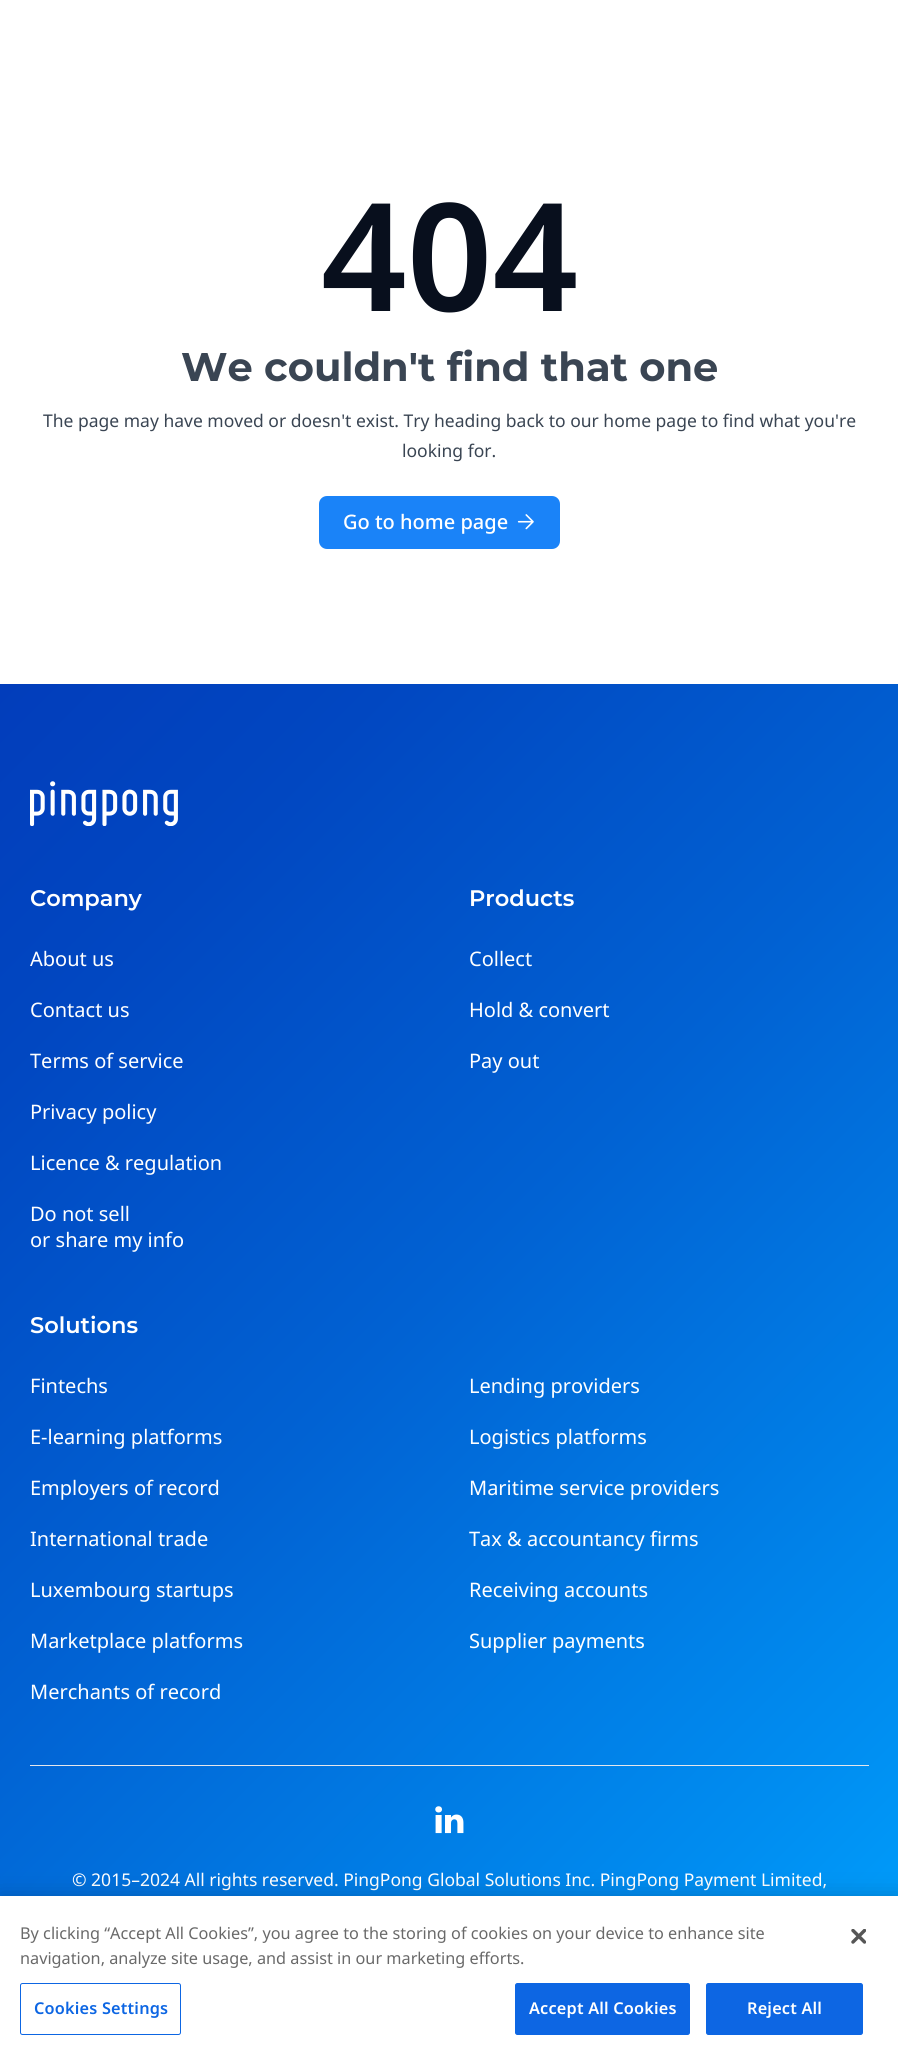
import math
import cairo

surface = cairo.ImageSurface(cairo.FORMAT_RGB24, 898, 2061)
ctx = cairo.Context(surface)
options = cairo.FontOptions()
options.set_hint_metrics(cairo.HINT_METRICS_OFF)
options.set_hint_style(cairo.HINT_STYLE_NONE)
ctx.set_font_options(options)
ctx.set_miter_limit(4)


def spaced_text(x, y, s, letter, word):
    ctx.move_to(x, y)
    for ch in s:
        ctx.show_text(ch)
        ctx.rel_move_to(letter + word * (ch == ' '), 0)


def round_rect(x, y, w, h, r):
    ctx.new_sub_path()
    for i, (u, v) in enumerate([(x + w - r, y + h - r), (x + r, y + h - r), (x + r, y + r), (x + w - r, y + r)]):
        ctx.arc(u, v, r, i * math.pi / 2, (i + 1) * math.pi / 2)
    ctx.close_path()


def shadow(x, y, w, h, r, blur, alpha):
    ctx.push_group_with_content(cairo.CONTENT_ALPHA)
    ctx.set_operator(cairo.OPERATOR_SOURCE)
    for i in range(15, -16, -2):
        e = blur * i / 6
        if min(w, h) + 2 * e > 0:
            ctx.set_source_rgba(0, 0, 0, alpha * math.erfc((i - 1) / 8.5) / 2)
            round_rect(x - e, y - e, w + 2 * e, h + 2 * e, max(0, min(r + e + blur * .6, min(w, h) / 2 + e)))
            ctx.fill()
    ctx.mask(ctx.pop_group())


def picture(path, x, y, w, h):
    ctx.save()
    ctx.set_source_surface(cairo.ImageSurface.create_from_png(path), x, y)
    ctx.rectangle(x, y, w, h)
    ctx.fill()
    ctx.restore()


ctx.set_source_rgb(1, 1, 1)
ctx.paint()
ctx.select_font_face("Noto Sans SemiBold")
ctx.set_font_size(150)
ctx.set_source_rgb(0.035, 0.059, 0.114)
ctx.move_to(321, 311)
ctx.show_text("404")
ctx.select_font_face("Montserrat", cairo.FONT_SLANT_NORMAL, cairo.FONT_WEIGHT_BOLD)
ctx.set_font_size(40)
ctx.set_source_rgb(0.227, 0.271, 0.325)
ctx.move_to(181, 381)
ctx.show_text("We couldn't find that one")
ctx.select_font_face("Noto Sans")
ctx.set_font_size(17.5)
ctx.move_to(43, 427)
ctx.show_text("The page may have moved or doesn't exist. Try heading back to our home page to find what you're")
ctx.move_to(402, 457)
ctx.show_text("looking for.")
ctx.set_source_rgb(0.102, 0.514, 0.969)
round_rect(319, 496, 241, 53, 8)
ctx.fill()
ctx.select_font_face("Noto Sans Medium")
ctx.set_font_size(20)
ctx.set_source_rgb(1, 1, 1)
ctx.move_to(343, 529)
ctx.show_text("Go to home page")
picture("img1.png", 517, 514, 17, 16)
gradient = cairo.LinearGradient(-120, 803, 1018, 1942)
gradient.add_color_stop_rgba(0, 0.008, 0.239, 0.733, 1)
gradient.add_color_stop_rgba(0.17, 0.004, 0.278, 0.757, 1)
gradient.add_color_stop_rgba(0.46, 0.004, 0.384, 0.827, 1)
gradient.add_color_stop_rgba(0.84, 0, 0.557, 0.945, 1)
gradient.add_color_stop_rgba(1, 0, 0.643, 1, 1)
ctx.set_source(gradient)
ctx.rectangle(0, 684, 898, 1212)
ctx.fill()
picture("img2.png", 30, 781, 148, 45)
ctx.select_font_face("Montserrat SemiBold")
ctx.set_font_size(22.5)
ctx.set_source_rgb(1, 1, 1)
ctx.move_to(30, 906)
ctx.show_text("Company")
ctx.select_font_face("Noto Sans")
ctx.set_font_size(20)
ctx.move_to(30, 966)
ctx.show_text("About us")
ctx.move_to(30, 1017)
ctx.show_text("Contact us")
ctx.move_to(30, 1068)
ctx.show_text("Terms of service")
ctx.move_to(30, 1119)
ctx.show_text("Privacy policy")
ctx.move_to(30, 1170)
ctx.show_text("Licence & regulation")
ctx.move_to(30, 1221)
ctx.show_text("Do not sell")
ctx.move_to(30, 1247)
ctx.show_text("or share my info")
ctx.select_font_face("Montserrat SemiBold")
ctx.set_font_size(22.5)
ctx.move_to(469, 906)
ctx.show_text("Products")
ctx.select_font_face("Noto Sans")
ctx.set_font_size(20)
ctx.move_to(469, 966)
ctx.show_text("Collect")
ctx.move_to(469, 1017)
ctx.show_text("Hold & convert")
ctx.move_to(469, 1068)
ctx.show_text("Pay out")
ctx.select_font_face("Montserrat SemiBold")
ctx.set_font_size(22.5)
ctx.move_to(30, 1333)
ctx.show_text("Solutions")
ctx.select_font_face("Noto Sans")
ctx.set_font_size(20)
ctx.move_to(30, 1393)
ctx.show_text("Fintechs")
ctx.move_to(30, 1444)
ctx.show_text("E-learning platforms")
ctx.move_to(30, 1495)
ctx.show_text("Employers of record")
ctx.move_to(30, 1546)
ctx.show_text("International trade")
ctx.move_to(30, 1597)
ctx.show_text("Luxembourg startups")
ctx.move_to(30, 1648)
ctx.show_text("Marketplace platforms")
ctx.move_to(30, 1699)
ctx.show_text("Merchants of record")
ctx.move_to(469, 1393)
ctx.show_text("Lending providers")
ctx.move_to(469, 1444)
ctx.show_text("Logistics platforms")
ctx.move_to(469, 1495)
ctx.show_text("Maritime service providers")
ctx.move_to(469, 1546)
ctx.show_text("Tax & accountancy firms")
ctx.move_to(469, 1597)
ctx.show_text("Receiving accounts")
ctx.move_to(469, 1648)
ctx.show_text("Supplier payments")
ctx.set_source_rgb(0.898, 0.906, 0.922)
ctx.rectangle(30, 1765, 839, 1)
ctx.fill()
picture("img3.png", 435, 1806, 29, 28)
ctx.set_font_size(17.5)
ctx.set_source_rgb(1, 1, 1)
ctx.move_to(72, 1886)
ctx.show_text("© 2015–2024 All rights reserved. PingPong Global Solutions Inc. PingPong Payment Limited,")
ctx.set_source_rgb(0, 0, 0)
shadow(0, 1896, 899, 165, 0, 11, 0.2)
ctx.set_source_rgb(1, 1, 1)
ctx.rectangle(0, 1896, 898, 165)
ctx.fill()
ctx.set_font_size(16.25)
ctx.set_source_rgb(0.412, 0.412, 0.412)
ctx.move_to(20, 1939)
ctx.show_text("By clicking “Accept All Cookies”, you agree to the storing of cookies on your device to enhance site")
ctx.move_to(20, 1964)
ctx.show_text("navigation, analyze site usage, and assist in our marketing efforts.")
round_rect(20.5, 1983.5, 160, 51, 2)
ctx.set_source_rgb(0.051, 0.4, 0.89)
ctx.set_line_width(1)
ctx.stroke()
ctx.select_font_face("Noto Sans SemiBold")
spaced_text(34, 2014, "Cookies Settings", 0.2, 0)
round_rect(515.5, 1983.5, 174, 51, 2)
ctx.fill_preserve()
ctx.stroke()
ctx.set_source_rgb(1, 1, 1)
spaced_text(529, 2014, "Accept All Cookies", 0.2, 0)
ctx.set_source_rgb(0.051, 0.4, 0.89)
round_rect(706.5, 1983.5, 156, 51, 2)
ctx.fill_preserve()
ctx.stroke()
ctx.set_source_rgb(1, 1, 1)
spaced_text(747, 2014, "Reject All", 0.2, 0)
picture("img4.png", 851, 1929, 15, 15)
surface.write_to_png("page.png")
